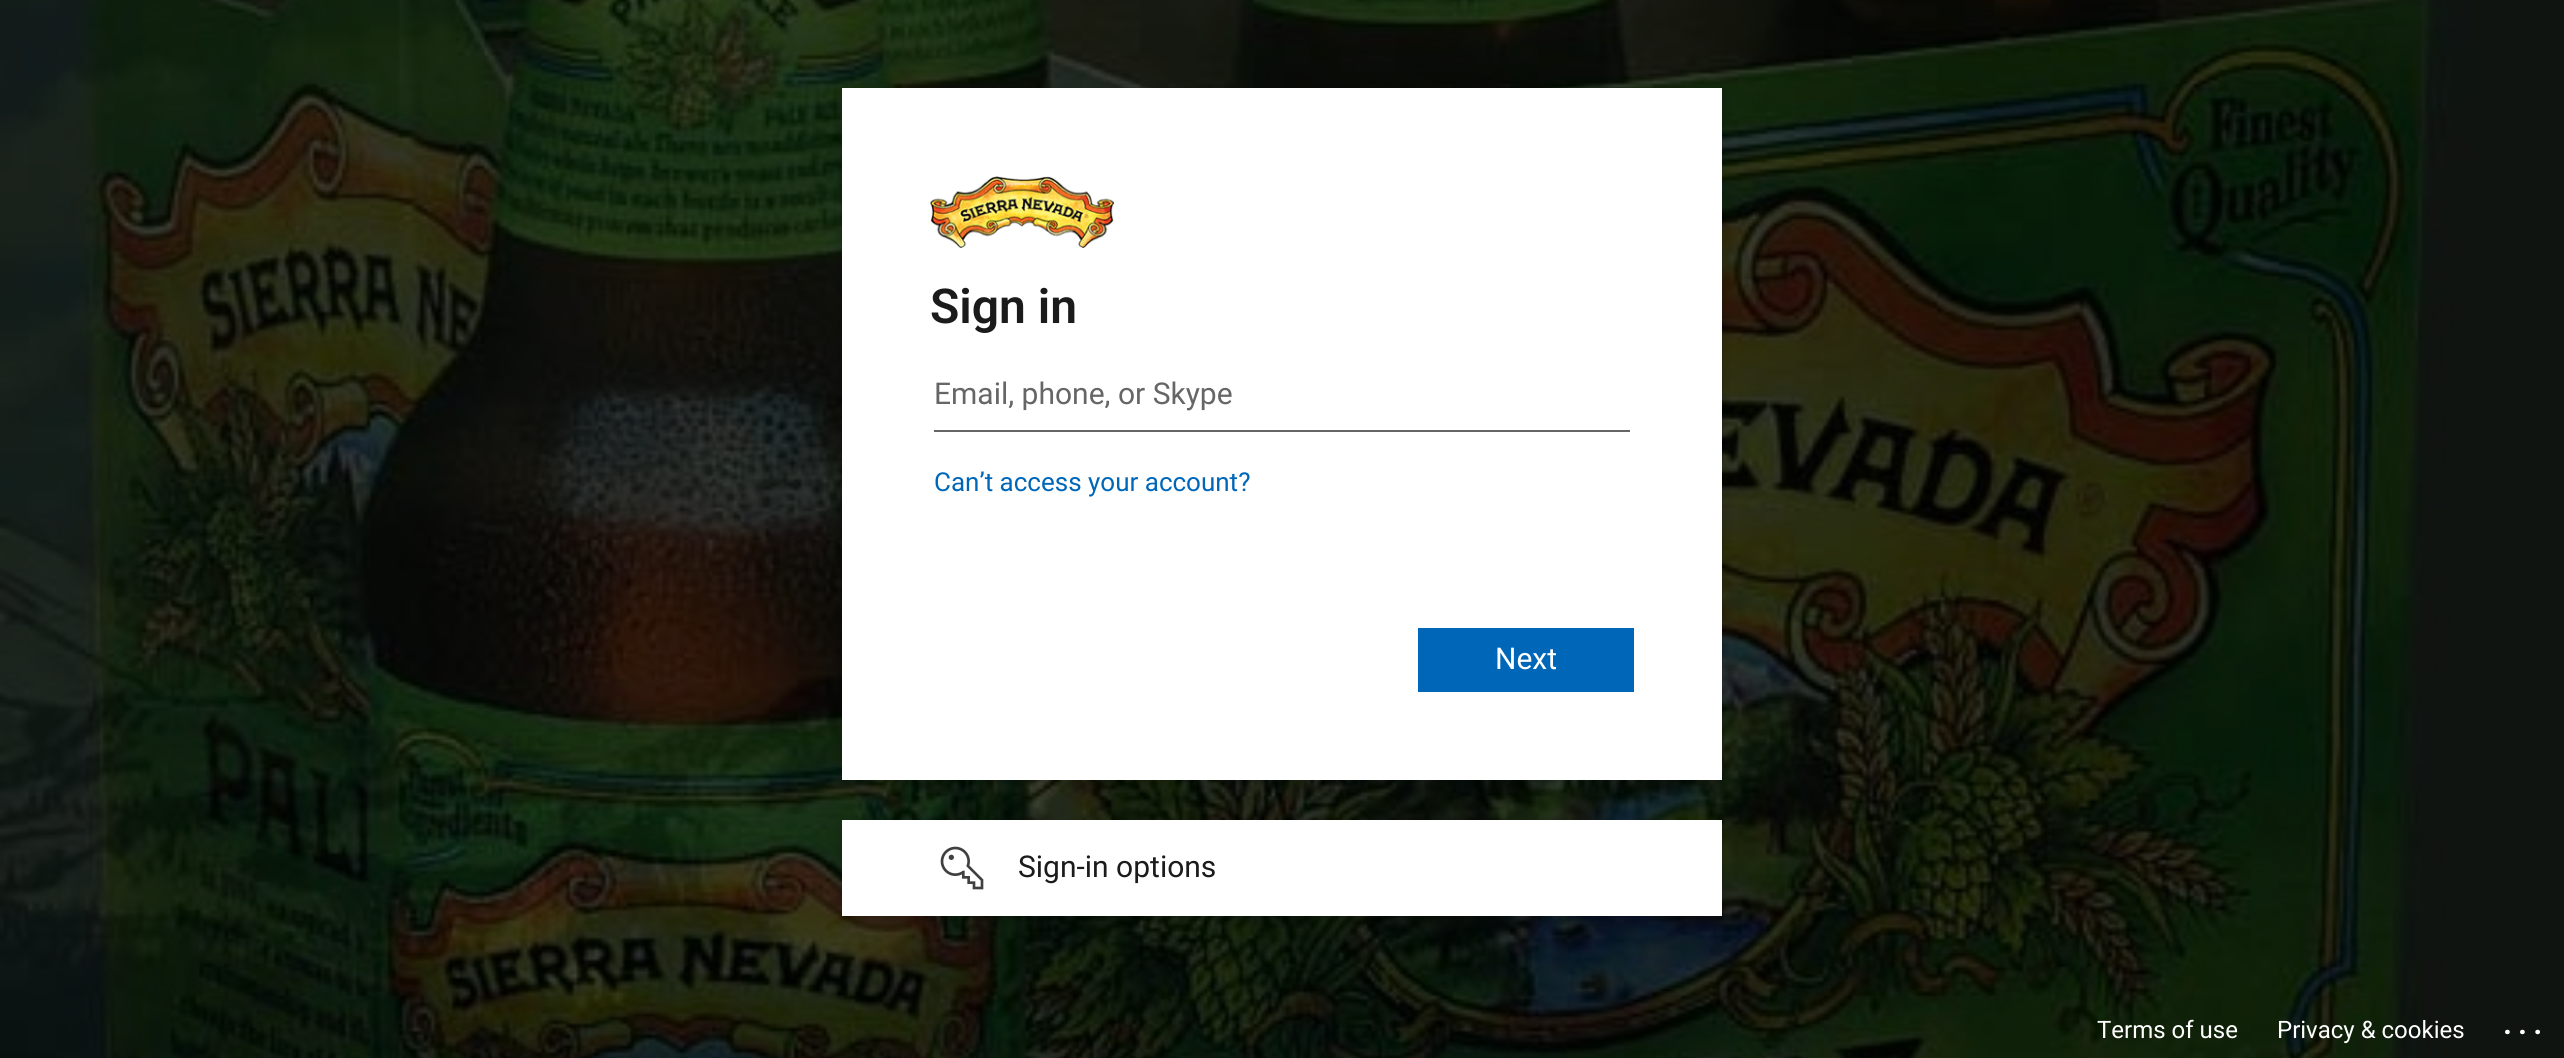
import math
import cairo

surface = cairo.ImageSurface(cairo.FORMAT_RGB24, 2564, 1058)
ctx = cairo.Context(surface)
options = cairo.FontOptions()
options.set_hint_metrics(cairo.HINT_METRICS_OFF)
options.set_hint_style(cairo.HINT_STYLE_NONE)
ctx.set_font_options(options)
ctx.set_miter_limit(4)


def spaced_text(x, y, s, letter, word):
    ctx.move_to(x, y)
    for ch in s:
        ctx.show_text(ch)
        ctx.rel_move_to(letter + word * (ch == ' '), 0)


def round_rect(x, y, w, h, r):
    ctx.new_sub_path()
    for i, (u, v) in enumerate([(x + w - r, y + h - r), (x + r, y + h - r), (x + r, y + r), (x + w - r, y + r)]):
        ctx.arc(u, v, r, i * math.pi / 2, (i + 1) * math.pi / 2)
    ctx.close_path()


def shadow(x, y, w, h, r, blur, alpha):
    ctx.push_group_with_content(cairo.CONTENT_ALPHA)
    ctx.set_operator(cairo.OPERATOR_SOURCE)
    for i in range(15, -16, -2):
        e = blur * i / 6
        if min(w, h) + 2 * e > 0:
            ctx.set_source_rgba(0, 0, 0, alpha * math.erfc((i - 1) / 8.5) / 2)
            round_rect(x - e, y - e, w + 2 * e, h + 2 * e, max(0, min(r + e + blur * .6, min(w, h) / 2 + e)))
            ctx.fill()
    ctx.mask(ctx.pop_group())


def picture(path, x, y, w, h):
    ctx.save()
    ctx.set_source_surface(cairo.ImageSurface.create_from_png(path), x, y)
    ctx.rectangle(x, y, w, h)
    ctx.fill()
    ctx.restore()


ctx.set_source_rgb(1, 1, 1)
ctx.paint()
picture("img1.png", 0, 0, 2564, 1058)
ctx.set_source_rgb(0, 0, 0)
shadow(842, 92, 880, 692, 0, 6, 0.2)
ctx.set_source_rgb(1, 1, 1)
ctx.rectangle(842, 88, 880, 692)
ctx.fill()
picture("img2.png", 930, 176, 184, 72)
ctx.select_font_face("Roboto SemiBold")
ctx.set_font_size(48)
ctx.set_source_rgb(0.106, 0.106, 0.106)
ctx.move_to(930, 323)
ctx.show_text("Sign in")
ctx.set_source_rgb(0.4, 0.4, 0.4)
ctx.rectangle(934, 430, 696, 2)
ctx.fill()
ctx.select_font_face("Roboto")
ctx.set_font_size(30)
ctx.move_to(934, 404)
ctx.show_text("Email, phone, or Skype")
ctx.set_font_size(26)
ctx.set_source_rgb(0, 0.404, 0.722)
ctx.move_to(934, 491)
ctx.show_text("Can’t access your account?")
ctx.rectangle(1418, 628, 216, 64)
ctx.fill()
ctx.set_font_size(30)
ctx.set_source_rgb(1, 1, 1)
ctx.move_to(1495, 669)
ctx.show_text("Next")
ctx.set_source_rgb(0, 0, 0)
shadow(842, 824, 880, 96, 0, 6, 0.2)
ctx.set_source_rgb(1, 1, 1)
ctx.rectangle(842, 820, 880, 96)
ctx.fill()
picture("img3.png", 940, 846, 44, 44)
ctx.set_source_rgb(0.106, 0.106, 0.106)
ctx.move_to(1018, 877)
ctx.show_text("Sign-in options")
ctx.set_font_size(24)
ctx.set_source_rgb(1, 1, 1)
ctx.move_to(2097, 1038)
ctx.show_text("Terms of use")
ctx.move_to(2277, 1038)
ctx.show_text("Privacy & cookies")
ctx.select_font_face("Roboto SemiBold")
ctx.set_font_size(32)
spaced_text(2503, 1034, "...", 6, 0)
surface.write_to_png("page.png")
